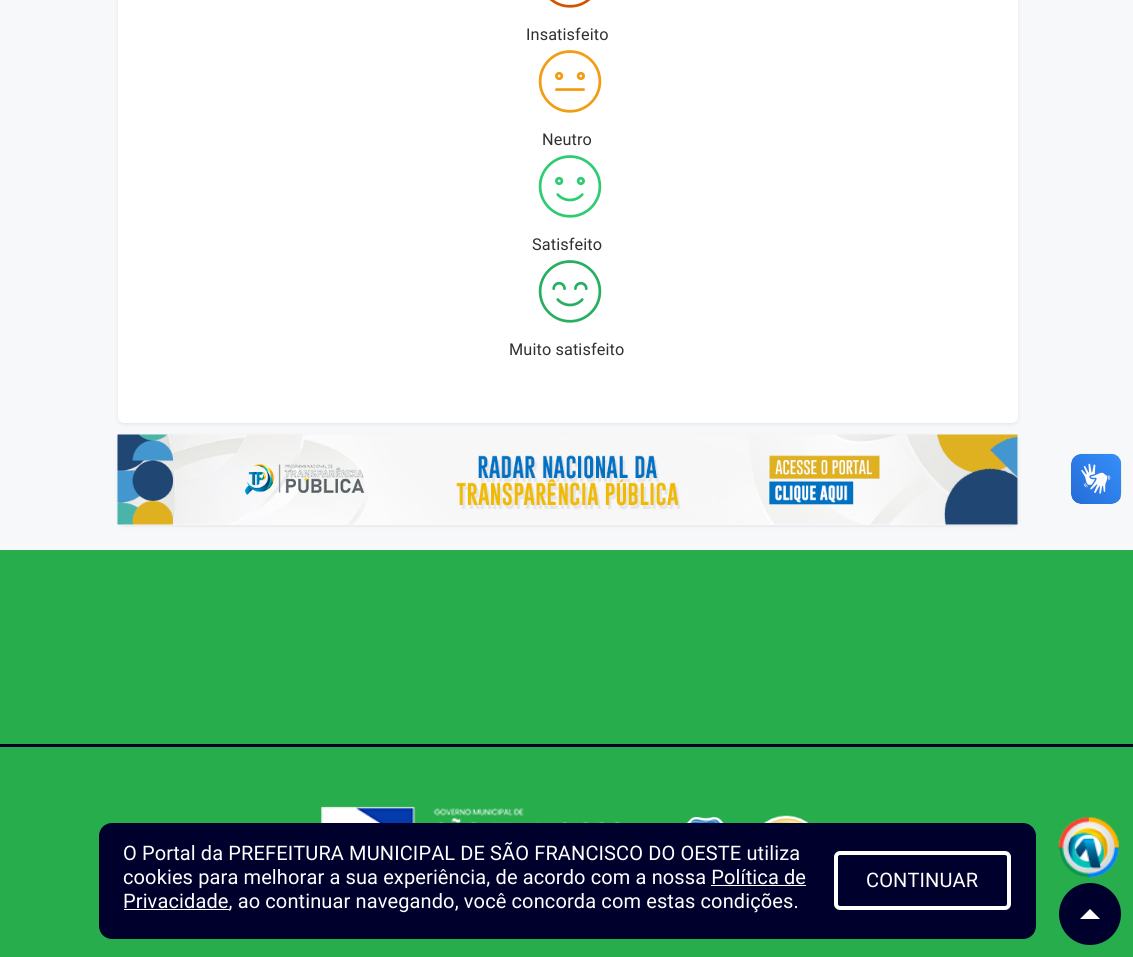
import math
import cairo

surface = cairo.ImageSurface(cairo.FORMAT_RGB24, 1133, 957)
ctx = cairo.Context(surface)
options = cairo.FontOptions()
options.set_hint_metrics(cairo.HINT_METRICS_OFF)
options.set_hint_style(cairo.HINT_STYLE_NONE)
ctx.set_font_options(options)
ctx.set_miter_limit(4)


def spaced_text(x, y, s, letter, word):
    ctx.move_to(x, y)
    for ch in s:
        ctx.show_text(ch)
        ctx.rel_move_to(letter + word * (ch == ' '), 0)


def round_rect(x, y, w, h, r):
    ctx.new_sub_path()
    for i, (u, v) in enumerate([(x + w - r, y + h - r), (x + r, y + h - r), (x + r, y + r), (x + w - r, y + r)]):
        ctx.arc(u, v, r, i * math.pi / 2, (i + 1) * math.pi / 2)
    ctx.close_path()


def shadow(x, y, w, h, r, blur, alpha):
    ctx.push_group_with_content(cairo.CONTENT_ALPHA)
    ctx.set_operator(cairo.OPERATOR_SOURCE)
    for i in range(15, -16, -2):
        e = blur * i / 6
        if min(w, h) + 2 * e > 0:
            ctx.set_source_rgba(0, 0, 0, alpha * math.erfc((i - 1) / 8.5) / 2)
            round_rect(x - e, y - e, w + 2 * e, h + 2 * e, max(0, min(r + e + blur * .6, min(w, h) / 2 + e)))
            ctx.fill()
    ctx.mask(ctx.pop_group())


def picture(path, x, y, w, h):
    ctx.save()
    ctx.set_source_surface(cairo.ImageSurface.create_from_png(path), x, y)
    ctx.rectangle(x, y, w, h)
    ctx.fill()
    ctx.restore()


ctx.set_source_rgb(0.965, 0.969, 0.973)
ctx.paint()
ctx.set_source_rgb(0.012, 0, 0.278)
shadow(118, -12, 900, 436, 6, 2, 0.09)
ctx.set_source_rgb(1, 1, 1)
round_rect(118, -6, 900, 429, 6)
ctx.fill()
picture("img1.png", 549, 0, 42, 8)
ctx.select_font_face("Roboto")
ctx.set_font_size(16.25)
ctx.set_source_rgb(0.188, 0.188, 0.188)
spaced_text(526, 40, "Insatisfeito", 0.12, 0)
picture("img2.png", 538, 50, 64, 63)
spaced_text(542, 145, "Neutro", 0.12, 0)
picture("img3.png", 538, 155, 64, 63)
spaced_text(532, 250, "Satisfeito", 0.12, 0)
picture("img4.png", 538, 260, 64, 63)
spaced_text(509, 355, "Muito satisfeito", 0.12, 0)
ctx.set_source_rgb(0.012, 0, 0.278)
shadow(118, 436, 900, 90, 6, 2, 0.09)
ctx.set_source_rgb(1, 1, 1)
round_rect(118, 435, 900, 90, 6)
ctx.fill()
picture("img5.png", 117, 434, 901, 91)
picture("img6.png", 1071, 453, 51, 51)
picture("img7.png", 1071, 454, 50, 50)
ctx.set_source_rgb(0.153, 0.678, 0.298)
ctx.rectangle(0, 550, 1133, 407)
ctx.fill()
ctx.set_source_rgb(0, 0, 0.176)
ctx.rectangle(0, 744, 1133, 3)
ctx.fill()
picture("img8.png", 321, 806, 299, 17)
picture("img9.png", 686, 817, 38, 6)
picture("img10.png", 763, 815, 46, 8)
round_rect(99, 823, 937, 116, 13)
ctx.fill()
ctx.set_font_size(20)
ctx.set_source_rgb(1, 1, 1)
spaced_text(123, 860, "O Portal da PREFEITURA MUNICIPAL DE SÃO FRANCISCO DO OESTE utiliza", 0.12, 0)
spaced_text(123, 884, "cookies para melhorar a sua experiência, de acordo com a nossa Política de", 0.12, 0)
ctx.rectangle(124, 909, 105, 1)
ctx.fill()
spaced_text(123, 908, "Privacidade, ao continuar navegando, você concorda com estas condições.", 0.12, 0)
ctx.rectangle(711, 885, 95, 1)
ctx.fill()
round_rect(836, 853, 173, 55, 4)
ctx.set_line_width(4)
ctx.stroke()
spaced_text(866, 887, "CONTINUAR", 0.12, 0)
picture("img11.png", 1058, 817, 61, 61)
ctx.set_source_rgb(0, 0, 0.176)
ctx.arc(1090, 914, 31, 0, 2 * math.pi)
ctx.fill()
ctx.set_source_rgb(1, 1, 1)
ctx.new_path()
ctx.move_to(1100, 919)
ctx.line_to(1080, 919)
ctx.line_to(1090, 909)
ctx.close_path()
ctx.fill()
surface.write_to_png("page.png")
